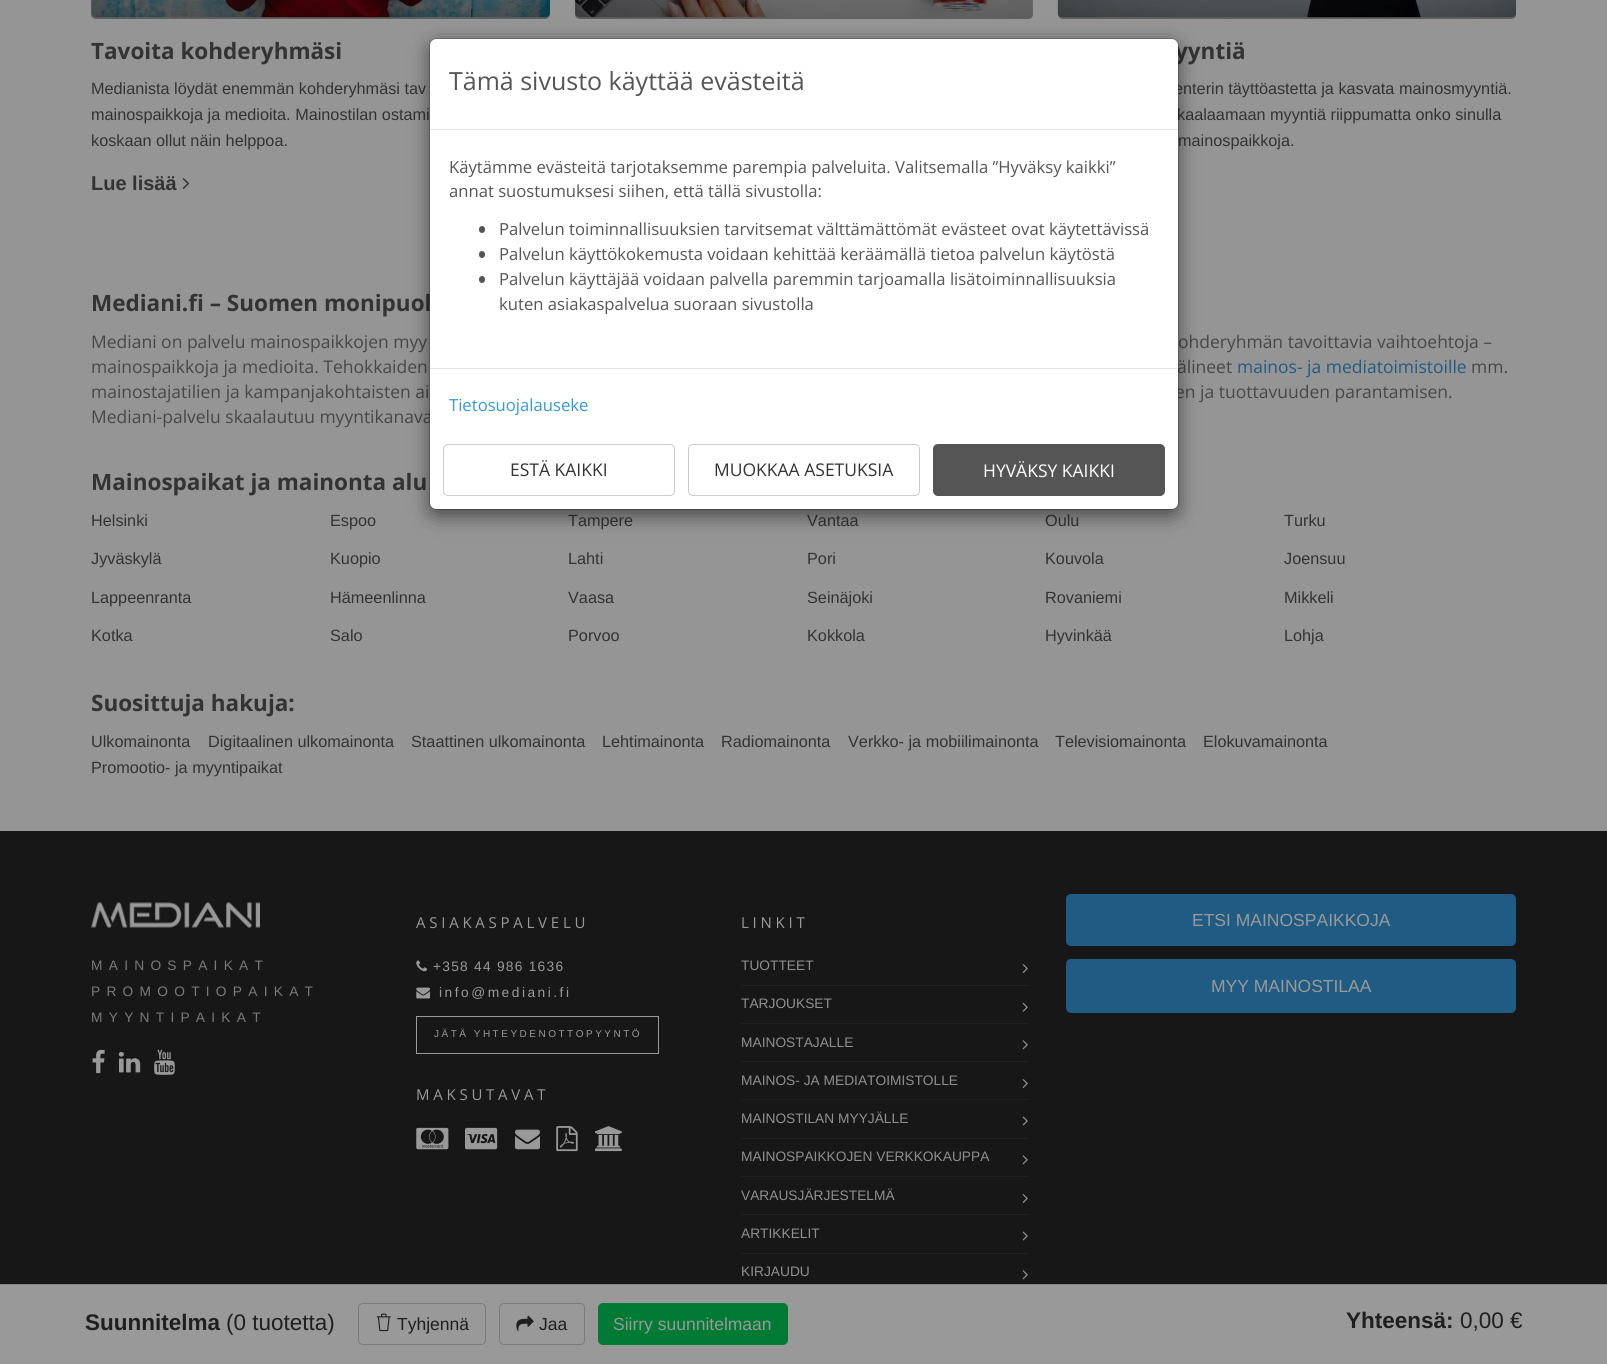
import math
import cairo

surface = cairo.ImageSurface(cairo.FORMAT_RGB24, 1607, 1364)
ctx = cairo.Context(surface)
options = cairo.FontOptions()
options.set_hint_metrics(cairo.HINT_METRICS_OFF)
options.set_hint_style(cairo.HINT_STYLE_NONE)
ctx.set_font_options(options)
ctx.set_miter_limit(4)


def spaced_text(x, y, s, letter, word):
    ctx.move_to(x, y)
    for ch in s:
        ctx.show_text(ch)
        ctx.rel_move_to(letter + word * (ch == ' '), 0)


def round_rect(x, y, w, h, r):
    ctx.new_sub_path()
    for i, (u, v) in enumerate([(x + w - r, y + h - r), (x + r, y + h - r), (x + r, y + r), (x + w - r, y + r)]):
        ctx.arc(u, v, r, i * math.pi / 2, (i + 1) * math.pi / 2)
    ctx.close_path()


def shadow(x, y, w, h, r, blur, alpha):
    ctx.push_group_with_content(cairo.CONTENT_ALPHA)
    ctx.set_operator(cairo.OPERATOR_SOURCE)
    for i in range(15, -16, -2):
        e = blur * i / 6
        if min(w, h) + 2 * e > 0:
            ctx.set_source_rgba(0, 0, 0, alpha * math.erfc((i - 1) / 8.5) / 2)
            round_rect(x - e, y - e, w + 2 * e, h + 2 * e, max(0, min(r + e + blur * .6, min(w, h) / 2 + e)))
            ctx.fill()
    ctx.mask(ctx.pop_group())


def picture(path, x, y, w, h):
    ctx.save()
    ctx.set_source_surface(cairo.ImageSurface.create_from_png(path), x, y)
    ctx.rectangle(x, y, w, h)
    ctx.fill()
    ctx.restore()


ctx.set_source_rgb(0.584, 0.584, 0.584)
ctx.paint()
picture("img1.png", 575, 0, 457, 18)
gradient = cairo.LinearGradient(804, -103, 804, 19)
gradient.add_color_stop_rgba(0, 0, 0, 0, 0)
gradient.add_color_stop_rgba(1, 0, 0, 0, 0.36)
ctx.set_source(gradient)
ctx.new_path()
ctx.move_to(575, -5)
ctx.line_to(1033, -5)
ctx.line_to(1033, 14)
ctx.curve_to(1033, 17, 1031, 19, 1028, 19)
ctx.line_to(580, 19)
ctx.curve_to(577, 19, 575, 17, 575, 14)
ctx.close_path()
ctx.fill()
picture("img2.png", 91, 0, 459, 18)
gradient = cairo.LinearGradient(321, -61, 321, 19)
gradient.add_color_stop_rgba(0, 0, 0, 0, 0)
gradient.add_color_stop_rgba(1, 0, 0, 0, 0.36)
ctx.set_source(gradient)
ctx.new_path()
ctx.move_to(91, -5)
ctx.line_to(550, -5)
ctx.line_to(550, 14)
ctx.curve_to(550, 17, 548, 19, 545, 19)
ctx.line_to(96, 19)
ctx.curve_to(93, 19, 91, 17, 91, 14)
ctx.close_path()
ctx.fill()
ctx.select_font_face("Open Sans", cairo.FONT_SLANT_NORMAL, cairo.FONT_WEIGHT_BOLD)
ctx.set_font_size(22.5)
ctx.set_source_rgb(0.2, 0.2, 0.2)
ctx.move_to(91, 59)
ctx.show_text("Tavoita kohderyhmäsi")
ctx.select_font_face("Liberation Sans")
ctx.set_font_size(16.25)
ctx.move_to(91, 94)
ctx.show_text("Medianista löydät enemmän kohderyhmäsi tav")
ctx.move_to(91, 120)
ctx.show_text("mainospaikkoja ja medioita. Mainostilan ostami")
ctx.move_to(91, 146)
ctx.show_text("koskaan ollut näin helppoa.")
ctx.select_font_face("Liberation Sans", cairo.FONT_SLANT_NORMAL, cairo.FONT_WEIGHT_BOLD)
ctx.set_font_size(20)
ctx.move_to(91, 190)
ctx.show_text("Lue lisää")
picture("img3.png", 182, 178, 8, 12)
picture("img4.png", 1057, 0, 460, 18)
gradient = cairo.LinearGradient(1287, -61, 1287, 19)
gradient.add_color_stop_rgba(0, 0, 0, 0, 0)
gradient.add_color_stop_rgba(1, 0, 0, 0, 0.36)
ctx.set_source(gradient)
ctx.new_path()
ctx.move_to(1058, -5)
ctx.line_to(1516, -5)
ctx.line_to(1516, 14)
ctx.curve_to(1516, 17, 1514, 19, 1511, 19)
ctx.line_to(1063, 19)
ctx.curve_to(1060, 19, 1058, 17, 1058, 14)
ctx.close_path()
ctx.fill()
ctx.select_font_face("Open Sans", cairo.FONT_SLANT_NORMAL, cairo.FONT_WEIGHT_BOLD)
ctx.set_font_size(22.5)
ctx.set_source_rgb(0.2, 0.2, 0.2)
ctx.move_to(1175, 59)
ctx.show_text("yyntiä")
ctx.select_font_face("Liberation Sans")
ctx.set_font_size(16.25)
ctx.move_to(1174, 94)
ctx.show_text("enterin täyttöastetta ja kasvata mainosmyyntiä.")
ctx.move_to(1177, 120)
ctx.show_text("kaalaamaan myyntiä riippumatta onko sinulla")
ctx.move_to(1178, 146)
ctx.show_text("mainospaikkoja.")
ctx.select_font_face("Open Sans", cairo.FONT_SLANT_NORMAL, cairo.FONT_WEIGHT_BOLD)
ctx.set_font_size(22.5)
ctx.move_to(91, 311)
ctx.show_text("Mediani.fi – Suomen monipuol")
ctx.select_font_face("Open Sans")
ctx.set_font_size(17.5)
ctx.set_source_rgb(0.278, 0.278, 0.278)
ctx.move_to(91, 348)
ctx.show_text("Mediani on palvelu mainospaikkojen myy")
ctx.move_to(1178, 348)
ctx.show_text("ohderyhmän tavoittavia vaihtoehtoja –")
ctx.move_to(91, 373)
ctx.show_text("mainospaikkoja ja medioita. Tehokkaiden")
ctx.move_to(1177, 373)
ctx.show_text("älineet")
ctx.set_source_rgb(0.122, 0.357, 0.514)
ctx.move_to(1237, 373)
ctx.show_text("mainos- ja mediatoimistoille")
ctx.set_source_rgb(0.278, 0.278, 0.278)
ctx.move_to(1471, 373)
ctx.show_text("mm.")
ctx.move_to(91, 398)
ctx.show_text("mainostajatilien ja kampanjakohtaisten ai")
ctx.move_to(1175, 398)
ctx.show_text("en ja tuottavuuden parantamisen.")
ctx.move_to(91, 423)
ctx.show_text("Mediani-palvelu skaalautuu myyntikanava")
ctx.select_font_face("Open Sans", cairo.FONT_SLANT_NORMAL, cairo.FONT_WEIGHT_BOLD)
ctx.set_font_size(22.5)
ctx.set_source_rgb(0.2, 0.2, 0.2)
ctx.move_to(91, 490)
ctx.show_text("Mainospaikat ja mainonta alu")
ctx.select_font_face("Liberation Sans")
ctx.set_font_size(16.25)
ctx.move_to(91, 526)
ctx.show_text("Helsinki")
ctx.move_to(330, 526)
ctx.show_text("Espoo")
ctx.move_to(568, 526)
ctx.show_text("Tampere")
ctx.move_to(807, 526)
ctx.show_text("Vantaa")
ctx.move_to(1045, 526)
ctx.show_text("Oulu")
ctx.move_to(1284, 526)
ctx.show_text("Turku")
ctx.move_to(91, 564)
ctx.show_text("Jyväskylä")
ctx.move_to(330, 564)
ctx.show_text("Kuopio")
ctx.move_to(568, 564)
ctx.show_text("Lahti")
ctx.move_to(807, 564)
ctx.show_text("Pori")
ctx.move_to(1045, 564)
ctx.show_text("Kouvola")
ctx.move_to(1284, 564)
ctx.show_text("Joensuu")
ctx.move_to(91, 603)
ctx.show_text("Lappeenranta")
ctx.move_to(330, 603)
ctx.show_text("Hämeenlinna")
ctx.move_to(568, 603)
ctx.show_text("Vaasa")
ctx.move_to(807, 603)
ctx.show_text("Seinäjoki")
ctx.move_to(1045, 603)
ctx.show_text("Rovaniemi")
ctx.move_to(1284, 603)
ctx.show_text("Mikkeli")
ctx.move_to(91, 641)
ctx.show_text("Kotka")
ctx.move_to(330, 641)
ctx.show_text("Salo")
ctx.move_to(568, 641)
ctx.show_text("Porvoo")
ctx.move_to(807, 641)
ctx.show_text("Kokkola")
ctx.move_to(1045, 641)
ctx.show_text("Hyvinkää")
ctx.move_to(1284, 641)
ctx.show_text("Lohja")
ctx.select_font_face("Open Sans", cairo.FONT_SLANT_NORMAL, cairo.FONT_WEIGHT_BOLD)
ctx.set_font_size(22.5)
ctx.move_to(91, 711)
ctx.show_text("Suosittuja hakuja:")
ctx.select_font_face("Liberation Sans")
ctx.set_font_size(16.25)
ctx.move_to(91, 747)
ctx.show_text("Ulkomainonta")
ctx.move_to(208, 747)
ctx.show_text("Digitaalinen ulkomainonta")
ctx.move_to(411, 747)
ctx.show_text("Staattinen ulkomainonta")
ctx.move_to(602, 747)
ctx.show_text("Lehtimainonta")
ctx.move_to(721, 747)
ctx.show_text("Radiomainonta")
ctx.move_to(848, 747)
ctx.show_text("Verkko- ja mobiilimainonta")
ctx.move_to(1055, 747)
ctx.show_text("Televisiomainonta")
ctx.move_to(1203, 747)
ctx.show_text("Elokuvamainonta")
ctx.move_to(91, 773)
ctx.show_text("Promootio- ja myyntipaikat")
ctx.set_source_rgb(0.09, 0.09, 0.09)
ctx.rectangle(0, 831, 1607, 453)
ctx.fill()
picture("img5.png", 91, 902, 169, 26)
ctx.set_font_size(13.75)
ctx.set_source_rgb(0.478, 0.478, 0.478)
spaced_text(91, 970, "MAINOSPAIKAT", 6.25, 0)
spaced_text(91, 996, "PROMOOTIOPAIKAT", 6.25, 0)
spaced_text(91, 1022, "MYYNTIPAIKAT", 6.25, 0)
picture("img6.png", 92, 1049, 13, 25)
picture("img7.png", 118, 1051, 23, 22)
picture("img8.png", 154, 1049, 21, 26)
ctx.select_font_face("Open Sans")
ctx.set_font_size(15)
ctx.set_source_rgb(0.6, 0.6, 0.6)
spaced_text(416, 928, "ASIAKASPALVELU", 3.75, 0)
picture("img9.png", 416, 960, 12, 12)
ctx.select_font_face("Liberation Sans")
ctx.set_font_size(13.75)
spaced_text(433, 971, "+358 44 986 1636", 1.25, 0)
picture("img10.png", 416, 987, 15, 12)
spaced_text(439, 997, "info@mediani.fi", 2.5, 0)
ctx.rectangle(416.5, 1016.5, 242, 37)
ctx.set_line_width(1)
ctx.stroke()
ctx.set_font_size(10)
spaced_text(434, 1037, "JÄTÄ YHTEYDENOTTOPYYNTÖ", 2.5, 0)
ctx.select_font_face("Open Sans")
ctx.set_font_size(15)
spaced_text(416, 1100, "MAKSUTAVAT", 3.75, 0)
picture("img11.png", 416, 1127, 33, 23)
picture("img12.png", 465, 1127, 33, 23)
picture("img13.png", 515, 1129, 25, 21)
picture("img14.png", 556, 1126, 22, 26)
picture("img15.png", 595, 1126, 27, 26)
spaced_text(741, 928, "LINKIT", 3.75, 0)
ctx.select_font_face("Liberation Sans")
ctx.set_font_size(13.75)
ctx.set_source_rgb(0.561, 0.561, 0.561)
ctx.move_to(741, 970)
ctx.show_text("TUOTTEET")
picture("img16.png", 1022, 964, 6, 9)
ctx.set_source_rgb(0.125, 0.125, 0.125)
ctx.rectangle(741, 985, 288, 1)
ctx.fill()
ctx.set_source_rgb(0.561, 0.561, 0.561)
ctx.move_to(741, 1008)
ctx.show_text("TARJOUKSET")
picture("img17.png", 1022, 1002, 6, 10)
ctx.set_source_rgb(0.125, 0.125, 0.125)
ctx.rectangle(741, 1023, 288, 1)
ctx.fill()
ctx.set_source_rgb(0.561, 0.561, 0.561)
ctx.move_to(741, 1047)
ctx.show_text("MAINOSTAJALLE")
picture("img18.png", 1022, 1040, 6, 10)
ctx.set_source_rgb(0.125, 0.125, 0.125)
ctx.rectangle(741, 1061, 288, 1)
ctx.fill()
ctx.set_source_rgb(0.561, 0.561, 0.561)
ctx.move_to(741, 1085)
ctx.show_text("MAINOS- JA MEDIATOIMISTOLLE")
picture("img16.png", 1022, 1079, 6, 9)
ctx.set_source_rgb(0.125, 0.125, 0.125)
ctx.rectangle(741, 1099, 288, 1)
ctx.fill()
ctx.set_source_rgb(0.561, 0.561, 0.561)
ctx.move_to(741, 1123)
ctx.show_text("MAINOSTILAN MYYJÄLLE")
picture("img19.png", 1022, 1116, 6, 10)
ctx.set_source_rgb(0.125, 0.125, 0.125)
ctx.rectangle(741, 1138, 288, 1)
ctx.fill()
ctx.set_source_rgb(0.561, 0.561, 0.561)
ctx.move_to(741, 1161)
ctx.show_text("MAINOSPAIKKOJEN VERKKOKAUPPA")
picture("img18.png", 1022, 1155, 6, 10)
ctx.set_source_rgb(0.125, 0.125, 0.125)
ctx.rectangle(741, 1176, 288, 1)
ctx.fill()
ctx.set_source_rgb(0.561, 0.561, 0.561)
ctx.move_to(741, 1200)
ctx.show_text("VARAUSJÄRJESTELMÄ")
picture("img16.png", 1022, 1194, 6, 9)
ctx.set_source_rgb(0.125, 0.125, 0.125)
ctx.rectangle(741, 1214, 288, 1)
ctx.fill()
ctx.set_source_rgb(0.561, 0.561, 0.561)
ctx.move_to(741, 1238)
ctx.show_text("ARTIKKELIT")
picture("img19.png", 1022, 1231, 6, 10)
ctx.set_source_rgb(0.125, 0.125, 0.125)
ctx.rectangle(741, 1253, 288, 1)
ctx.fill()
ctx.set_source_rgb(0.561, 0.561, 0.561)
ctx.move_to(741, 1276)
ctx.show_text("KIRJAUDU")
picture("img18.png", 1022, 1270, 6, 10)
ctx.set_source_rgb(0.122, 0.357, 0.514)
round_rect(1066, 894, 450, 52, 5)
ctx.fill()
ctx.set_font_size(17.5)
ctx.set_source_rgb(0.6, 0.6, 0.6)
ctx.move_to(1192, 926)
ctx.show_text("ETSI MAINOSPAIKKOJA")
ctx.set_source_rgb(0.122, 0.357, 0.514)
round_rect(1066, 959, 450, 54, 5)
ctx.fill()
ctx.set_source_rgb(0.6, 0.6, 0.6)
ctx.move_to(1211, 992)
ctx.show_text("MYY MAINOSTILAA")
ctx.rectangle(0, 1285, 1607, 79)
ctx.fill()
ctx.set_source_rgb(0.51, 0.51, 0.51)
ctx.rectangle(0, 1284, 1607, 1)
ctx.fill()
ctx.select_font_face("Liberation Sans", cairo.FONT_SLANT_NORMAL, cairo.FONT_WEIGHT_BOLD)
ctx.set_font_size(22.5)
ctx.set_source_rgb(0.122, 0.122, 0.122)
ctx.move_to(85, 1330)
ctx.show_text("Suunnitelma")
ctx.select_font_face("Liberation Sans")
ctx.move_to(226, 1330)
ctx.show_text("(0 tuotetta)")
round_rect(358.5, 1303.5, 127, 41, 4.5)
ctx.set_source_rgb(0.478, 0.478, 0.478)
ctx.stroke()
picture("img20.png", 376, 1313, 15, 19)
ctx.set_font_size(17.5)
ctx.set_source_rgb(0.122, 0.122, 0.122)
ctx.move_to(397, 1330)
ctx.show_text("Tyhjennä")
round_rect(499.5, 1303.5, 85, 41, 4.5)
ctx.set_source_rgb(0.478, 0.478, 0.478)
ctx.stroke()
picture("img21.png", 516, 1315, 18, 17)
ctx.set_source_rgb(0.122, 0.122, 0.122)
ctx.move_to(539, 1330)
ctx.show_text("Jaa")
ctx.set_source_rgb(0, 0.478, 0.204)
round_rect(598, 1303, 190, 42, 5)
ctx.fill()
ctx.set_source_rgb(0.6, 0.6, 0.6)
ctx.move_to(613, 1330)
ctx.show_text("Siirry suunnitelmaan")
ctx.select_font_face("Liberation Sans", cairo.FONT_SLANT_NORMAL, cairo.FONT_WEIGHT_BOLD)
ctx.set_font_size(22.5)
ctx.set_source_rgb(0.122, 0.122, 0.122)
ctx.move_to(1346, 1328)
ctx.show_text("Yhteensä:")
ctx.select_font_face("Liberation Sans")
ctx.move_to(1460, 1328)
ctx.show_text("0,00 €")
ctx.set_source_rgb(0, 0, 0)
shadow(429, 44, 750, 472, 8, 9.5, 0.5)
ctx.set_source_rgb(1, 1, 1)
round_rect(430, 39, 748, 470, 6)
ctx.fill()
round_rect(429.5, 38.5, 749, 471, 7.5)
ctx.set_source_rgba(0, 0, 0, 0.2)
ctx.stroke()
ctx.set_source_rgb(0.898, 0.898, 0.898)
ctx.rectangle(430, 129, 748, 1)
ctx.fill()
ctx.select_font_face("Open Sans")
ctx.set_font_size(25)
ctx.set_source_rgb(0.333, 0.333, 0.333)
ctx.move_to(449, 90)
ctx.show_text("Tämä sivusto käyttää evästeitä")
ctx.set_font_size(16.65)
ctx.move_to(449, 173)
ctx.show_text("Käytämme evästeitä tarjotaksemme parempia palveluita. Valitsemalla ”Hyväksy kaikki”")
ctx.move_to(449, 197)
ctx.show_text("annat suostumuksesi siihen, että tällä sivustolla:")
round_rect(479, 226, 6, 7, 3)
ctx.fill()
ctx.move_to(499, 235)
ctx.show_text("Palvelun toiminnallisuuksien tarvitsemat välttämättömät evästeet ovat käytettävissä")
round_rect(479, 251, 6, 7, 3)
ctx.fill()
ctx.move_to(499, 260)
ctx.show_text("Palvelun käyttökokemusta voidaan kehittää keräämällä tietoa palvelun käytöstä")
round_rect(479, 276, 6, 7, 3)
ctx.fill()
ctx.move_to(499, 285)
ctx.show_text("Palvelun käyttäjää voidaan palvella paremmin tarjoamalla lisätoiminnallisuuksia")
ctx.move_to(499, 310)
ctx.show_text("kuten asiakaspalvelua suoraan sivustolla")
ctx.set_source_rgb(0.898, 0.898, 0.898)
ctx.rectangle(430, 368, 748, 1)
ctx.fill()
ctx.set_source_rgb(0.204, 0.596, 0.859)
ctx.move_to(449, 411)
ctx.show_text("Tietosuojalauseke")
round_rect(443.5, 444.5, 231, 51, 4.5)
ctx.set_source_rgb(0.8, 0.8, 0.8)
ctx.stroke()
ctx.set_font_size(17.5)
ctx.set_source_rgb(0.2, 0.2, 0.2)
ctx.move_to(510, 476)
ctx.show_text("ESTÄ KAIKKI")
round_rect(688.5, 444.5, 231, 51, 4.5)
ctx.set_source_rgb(0.8, 0.8, 0.8)
ctx.stroke()
ctx.set_source_rgb(0.2, 0.2, 0.2)
ctx.move_to(714, 476)
ctx.show_text("MUOKKAA ASETUKSIA")
ctx.set_source_rgb(0.333, 0.333, 0.333)
round_rect(933, 444, 232, 52, 5)
ctx.fill()
ctx.set_source_rgb(1, 1, 1)
ctx.move_to(983, 477)
ctx.show_text("HYVÄKSY KAIKKI")
surface.write_to_png("page.png")
